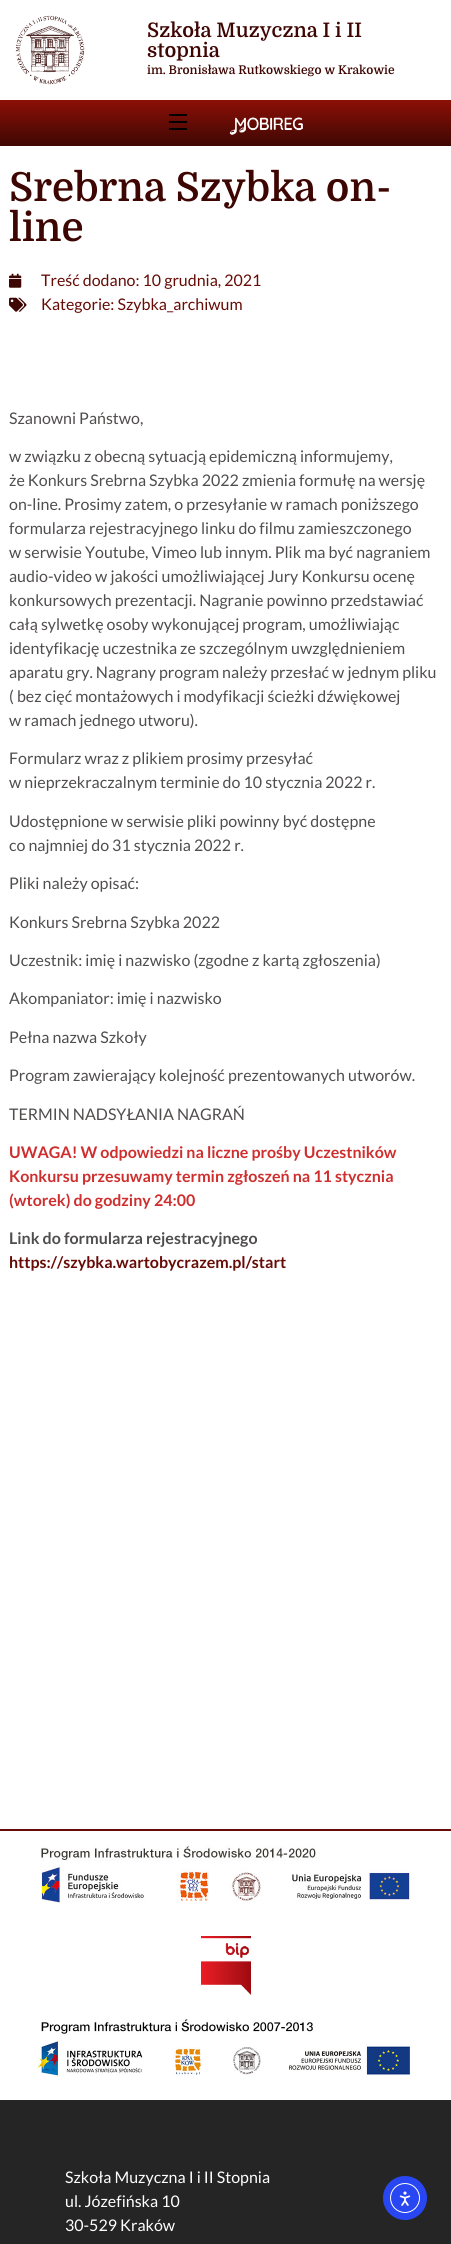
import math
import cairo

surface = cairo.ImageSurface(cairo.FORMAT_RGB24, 451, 2244)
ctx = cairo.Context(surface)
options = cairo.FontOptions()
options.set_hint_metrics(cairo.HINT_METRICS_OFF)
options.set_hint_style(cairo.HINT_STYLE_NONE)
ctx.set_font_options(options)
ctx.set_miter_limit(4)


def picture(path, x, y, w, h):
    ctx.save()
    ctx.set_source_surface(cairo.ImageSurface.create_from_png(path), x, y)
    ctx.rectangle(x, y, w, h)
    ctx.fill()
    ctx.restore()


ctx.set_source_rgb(1, 1, 1)
ctx.paint()
picture("img1.png", 15, 15, 70, 70)
ctx.select_font_face("Domine SemiBold")
ctx.set_font_size(20)
ctx.set_source_rgb(0.243, 0.027, 0.012)
ctx.move_to(147, 37)
ctx.show_text("Szkoła Muzyczna I i II")
ctx.move_to(147, 57)
ctx.show_text("stopnia")
ctx.set_font_size(12)
ctx.move_to(147, 74)
ctx.show_text("im. Bronisława Rutkowskiego w Krakowie")
gradient = cairo.LinearGradient(226, 100, 226, 146)
gradient.add_color_stop_rgba(0, 0.549, 0.063, 0.027, 1)
gradient.add_color_stop_rgba(1, 0.243, 0.027, 0.012, 1)
ctx.set_source(gradient)
ctx.rectangle(0, 100, 451, 46)
ctx.fill()
ctx.set_source_rgb(0, 0, 0)
ctx.rectangle(169, 114, 18, 2)
ctx.fill()
ctx.rectangle(169, 121, 18, 2)
ctx.fill()
ctx.rectangle(169, 128, 18, 2)
ctx.fill()
picture("img2.png", 229, 117, 74, 18)
ctx.set_font_size(40)
ctx.set_source_rgb(0.243, 0.027, 0.012)
ctx.move_to(9, 201)
ctx.show_text("Srebrna Szybka on-")
ctx.move_to(9, 241)
ctx.show_text("line")
picture("img3.png", 9, 273, 13, 15)
ctx.select_font_face("Lato")
ctx.set_font_size(16)
ctx.set_source_rgb(0.4, 0.043, 0.02)
ctx.move_to(41, 286)
ctx.show_text("Treść dodano: 10 grudnia, 2021")
picture("img4.png", 9, 297, 18, 15)
ctx.move_to(41, 310)
ctx.show_text("Kategorie: Szybka_archiwum")
ctx.set_source_rgb(0.314, 0.302, 0.302)
ctx.move_to(9, 424)
ctx.show_text("Szanowni Państwo,")
ctx.move_to(9, 462)
ctx.show_text("w związku z obecną sytuacją epidemiczną informujemy,")
ctx.move_to(9, 486)
ctx.show_text("że Konkurs Srebrna Szybka 2022 zmienia formułę na wersję")
ctx.move_to(9, 510)
ctx.show_text("on-line. Prosimy zatem, o przesyłanie w ramach poniższego")
ctx.move_to(9, 534)
ctx.show_text("formularza rejestracyjnego linku do filmu zamieszczonego")
ctx.move_to(9, 558)
ctx.show_text("w serwisie Youtube, Vimeo lub innym. Plik ma być nagraniem")
ctx.move_to(9, 582)
ctx.show_text("audio-video w jakości umożliwiającej Jury Konkursu ocenę")
ctx.move_to(9, 606)
ctx.show_text("konkursowych prezentacji. Nagranie powinno przedstawiać")
ctx.move_to(9, 630)
ctx.show_text("całą sylwetkę osoby wykonującej program, umożliwiając")
ctx.move_to(9, 654)
ctx.show_text("identyfikację uczestnika ze szczególnym uwzględnieniem")
ctx.move_to(9, 678)
ctx.show_text("aparatu gry. Nagrany program należy przesłać w jednym pliku")
ctx.move_to(9, 702)
ctx.show_text("( bez cięć montażowych i modyfikacji ścieżki dźwiękowej")
ctx.move_to(9, 726)
ctx.show_text("w ramach jednego utworu).")
ctx.move_to(9, 764)
ctx.show_text("Formularz wraz z plikiem prosimy przesyłać")
ctx.move_to(9, 788)
ctx.show_text("w nieprzekraczalnym terminie do 10 stycznia 2022 r.")
ctx.move_to(9, 827)
ctx.show_text("Udostępnione w serwisie pliki powinny być dostępne")
ctx.move_to(9, 851)
ctx.show_text("co najmniej do 31 stycznia 2022 r.")
ctx.move_to(9, 889)
ctx.show_text("Pliki należy opisać:")
ctx.move_to(9, 928)
ctx.show_text("Konkurs Srebrna Szybka 2022")
ctx.move_to(9, 966)
ctx.show_text("Uczestnik: imię i nazwisko (zgodne z kartą zgłoszenia)")
ctx.move_to(9, 1004)
ctx.show_text("Akompaniator: imię i nazwisko")
ctx.move_to(9, 1043)
ctx.show_text("Pełna nazwa Szkoły")
ctx.move_to(9, 1081)
ctx.show_text("Program zawierający kolejność prezentowanych utworów.")
ctx.move_to(9, 1120)
ctx.show_text("TERMIN NADSYŁANIA NAGRAŃ")
ctx.select_font_face("Lato", cairo.FONT_SLANT_NORMAL, cairo.FONT_WEIGHT_BOLD)
ctx.set_source_rgb(0.812, 0.18, 0.18)
ctx.move_to(9, 1158)
ctx.show_text("UWAGA! W odpowiedzi na liczne prośby Uczestników")
ctx.move_to(9, 1182)
ctx.show_text("Konkursu przesuwamy termin zgłoszeń na 11 stycznia")
ctx.move_to(9, 1206)
ctx.show_text("(wtorek) do godziny 24:00")
ctx.set_source_rgb(0.314, 0.302, 0.302)
ctx.move_to(9, 1244)
ctx.show_text("Link do formularza rejestracyjnego")
ctx.set_source_rgb(0.4, 0.043, 0.02)
ctx.move_to(9, 1268)
ctx.show_text("https://szybka.wartobycrazem.pl/start")
ctx.rectangle(0, 1829, 451, 2)
ctx.fill()
picture("img5.png", 41, 1845, 371, 60)
picture("img6.png", 201, 1936, 50, 59)
picture("img7.png", 37, 2019, 375, 59)
ctx.set_source_rgb(0.145, 0.145, 0.145)
ctx.rectangle(0, 2100, 451, 144)
ctx.fill()
ctx.select_font_face("Lato")
ctx.set_source_rgb(1, 1, 1)
ctx.move_to(65, 2183)
ctx.show_text("Szkoła Muzyczna I i II Stopnia")
ctx.move_to(65, 2207)
ctx.show_text("ul. Józefińska 10")
ctx.move_to(65, 2231)
ctx.show_text("30-529 Kraków")
ctx.set_source_rgb(0.157, 0.278, 0.953)
ctx.new_path()
ctx.arc(405, 2198, 22, 0, 2 * math.pi)
ctx.fill()
ctx.arc(405, 2198, 14.5, 0, 2 * math.pi)
ctx.set_source_rgb(1, 1, 1)
ctx.set_line_width(1)
ctx.stroke()
picture("img8.png", 399, 2191, 12, 15)
surface.write_to_png("page.png")
